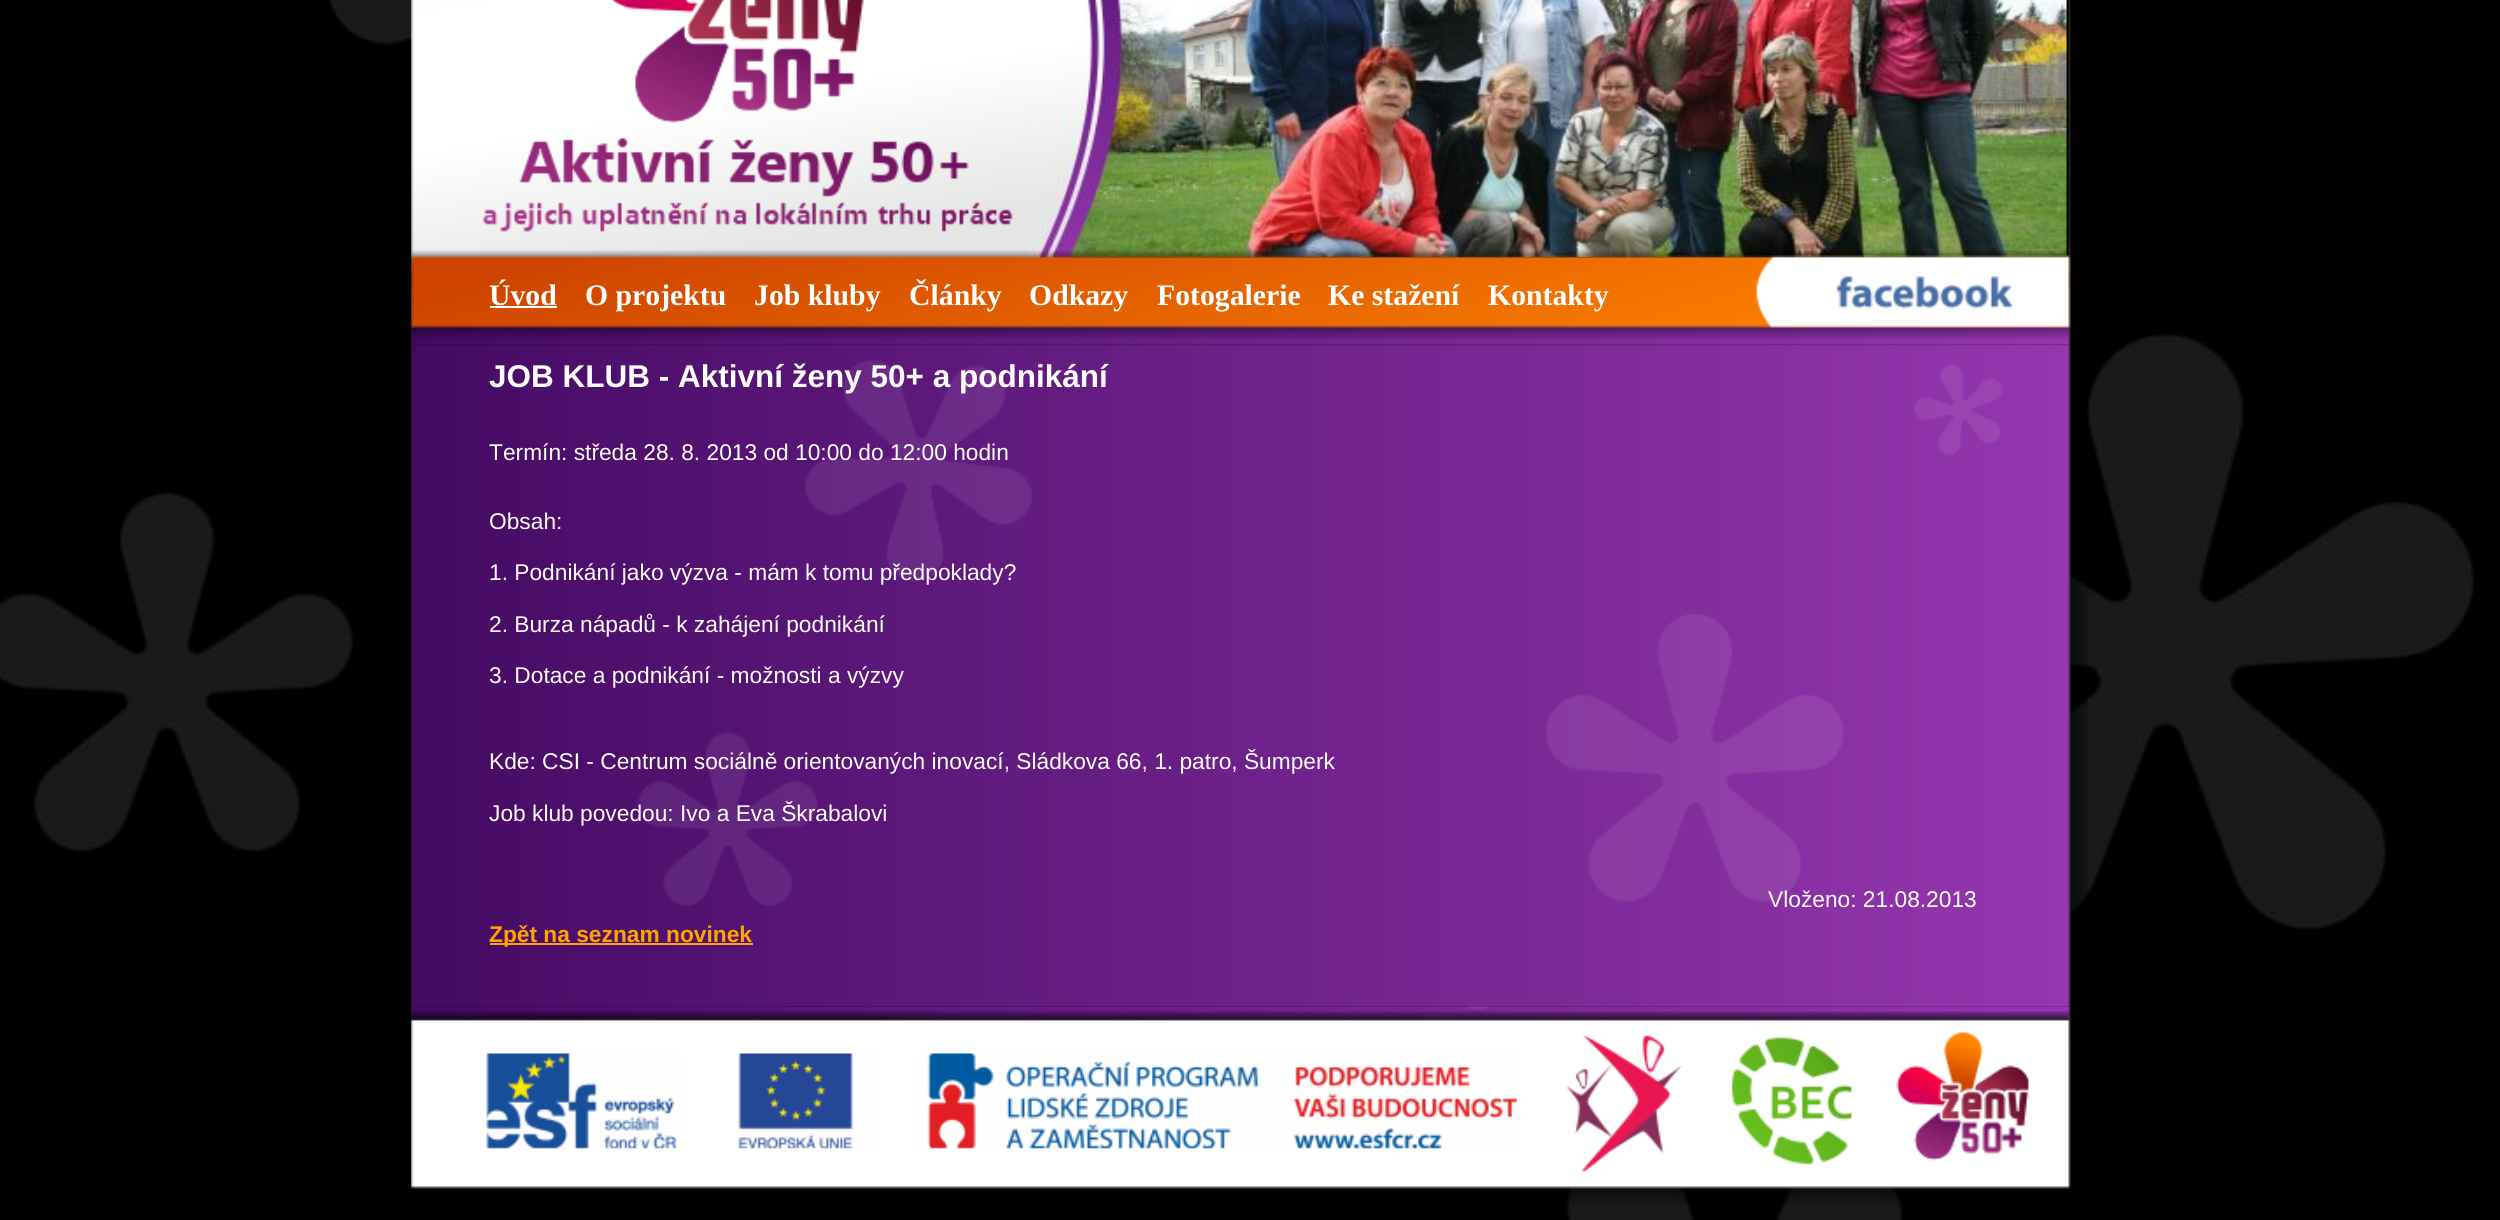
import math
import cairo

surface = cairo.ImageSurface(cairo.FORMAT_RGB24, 2500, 1220)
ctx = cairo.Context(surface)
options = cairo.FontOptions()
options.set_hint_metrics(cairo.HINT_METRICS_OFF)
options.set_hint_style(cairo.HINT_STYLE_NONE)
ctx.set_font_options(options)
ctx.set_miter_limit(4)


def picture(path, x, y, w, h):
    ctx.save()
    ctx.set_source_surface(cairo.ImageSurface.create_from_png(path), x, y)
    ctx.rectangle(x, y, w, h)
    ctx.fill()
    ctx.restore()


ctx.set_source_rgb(1, 1, 1)
ctx.paint()
picture("img1.png", 0, 0, 2500, 1220)
picture("img4.png", 411, 344, 1677, 663)
picture("img2.png", 411, 0, 1660, 345)
picture("img3.png", 1029, 0, 1038, 258)
ctx.select_font_face("Liberation Serif", cairo.FONT_SLANT_NORMAL, cairo.FONT_WEIGHT_BOLD)
ctx.set_font_size(29.75)
ctx.set_source_rgb(1, 1, 1)
ctx.move_to(489, 305)
ctx.show_text("Úvod")
ctx.rectangle(490, 306, 67, 2)
ctx.fill()
ctx.move_to(585, 305)
ctx.show_text("O projektu")
ctx.move_to(754, 305)
ctx.show_text("Job kluby")
ctx.move_to(909, 305)
ctx.show_text("Články")
ctx.move_to(1029, 305)
ctx.show_text("Odkazy")
ctx.move_to(1157, 305)
ctx.show_text("Fotogalerie")
ctx.move_to(1328, 305)
ctx.show_text("Ke stažení")
ctx.move_to(1488, 305)
ctx.show_text("Kontakty")
ctx.select_font_face("Liberation Sans", cairo.FONT_SLANT_NORMAL, cairo.FONT_WEIGHT_BOLD)
ctx.set_font_size(31.5)
ctx.move_to(489, 387)
ctx.show_text("JOB KLUB - Aktivní ženy 50+ a podnikání")
ctx.select_font_face("Liberation Sans")
ctx.set_font_size(22.75)
ctx.move_to(489, 460)
ctx.show_text("Termín: středa 28. 8. 2013 od 10:00 do 12:00 hodin")
ctx.move_to(489, 529)
ctx.show_text("Obsah:")
ctx.move_to(489, 580)
ctx.show_text("1. Podnikání jako výzva - mám k tomu předpoklady?")
ctx.move_to(489, 632)
ctx.show_text("2. Burza nápadů - k zahájení podnikání")
ctx.move_to(489, 683)
ctx.show_text("3. Dotace a podnikání - možnosti a výzvy")
ctx.move_to(489, 769)
ctx.show_text("Kde: CSI - Centrum sociálně orientovaných inovací, Sládkova 66, 1. patro, Šumperk")
ctx.move_to(489, 821)
ctx.show_text("Job klub povedou: Ivo a Eva Škrabalovi")
ctx.move_to(1768, 907)
ctx.show_text("Vloženo: 21.08.2013")
ctx.set_source_rgb(1, 0.647, 0)
ctx.rectangle(490, 943, 263, 2)
ctx.fill()
ctx.select_font_face("Liberation Sans", cairo.FONT_SLANT_NORMAL, cairo.FONT_WEIGHT_BOLD)
ctx.move_to(489, 942)
ctx.show_text("Zpět na seznam novinek")
picture("img5.png", 411, 1006, 1660, 197)
surface.write_to_png("page.png")
